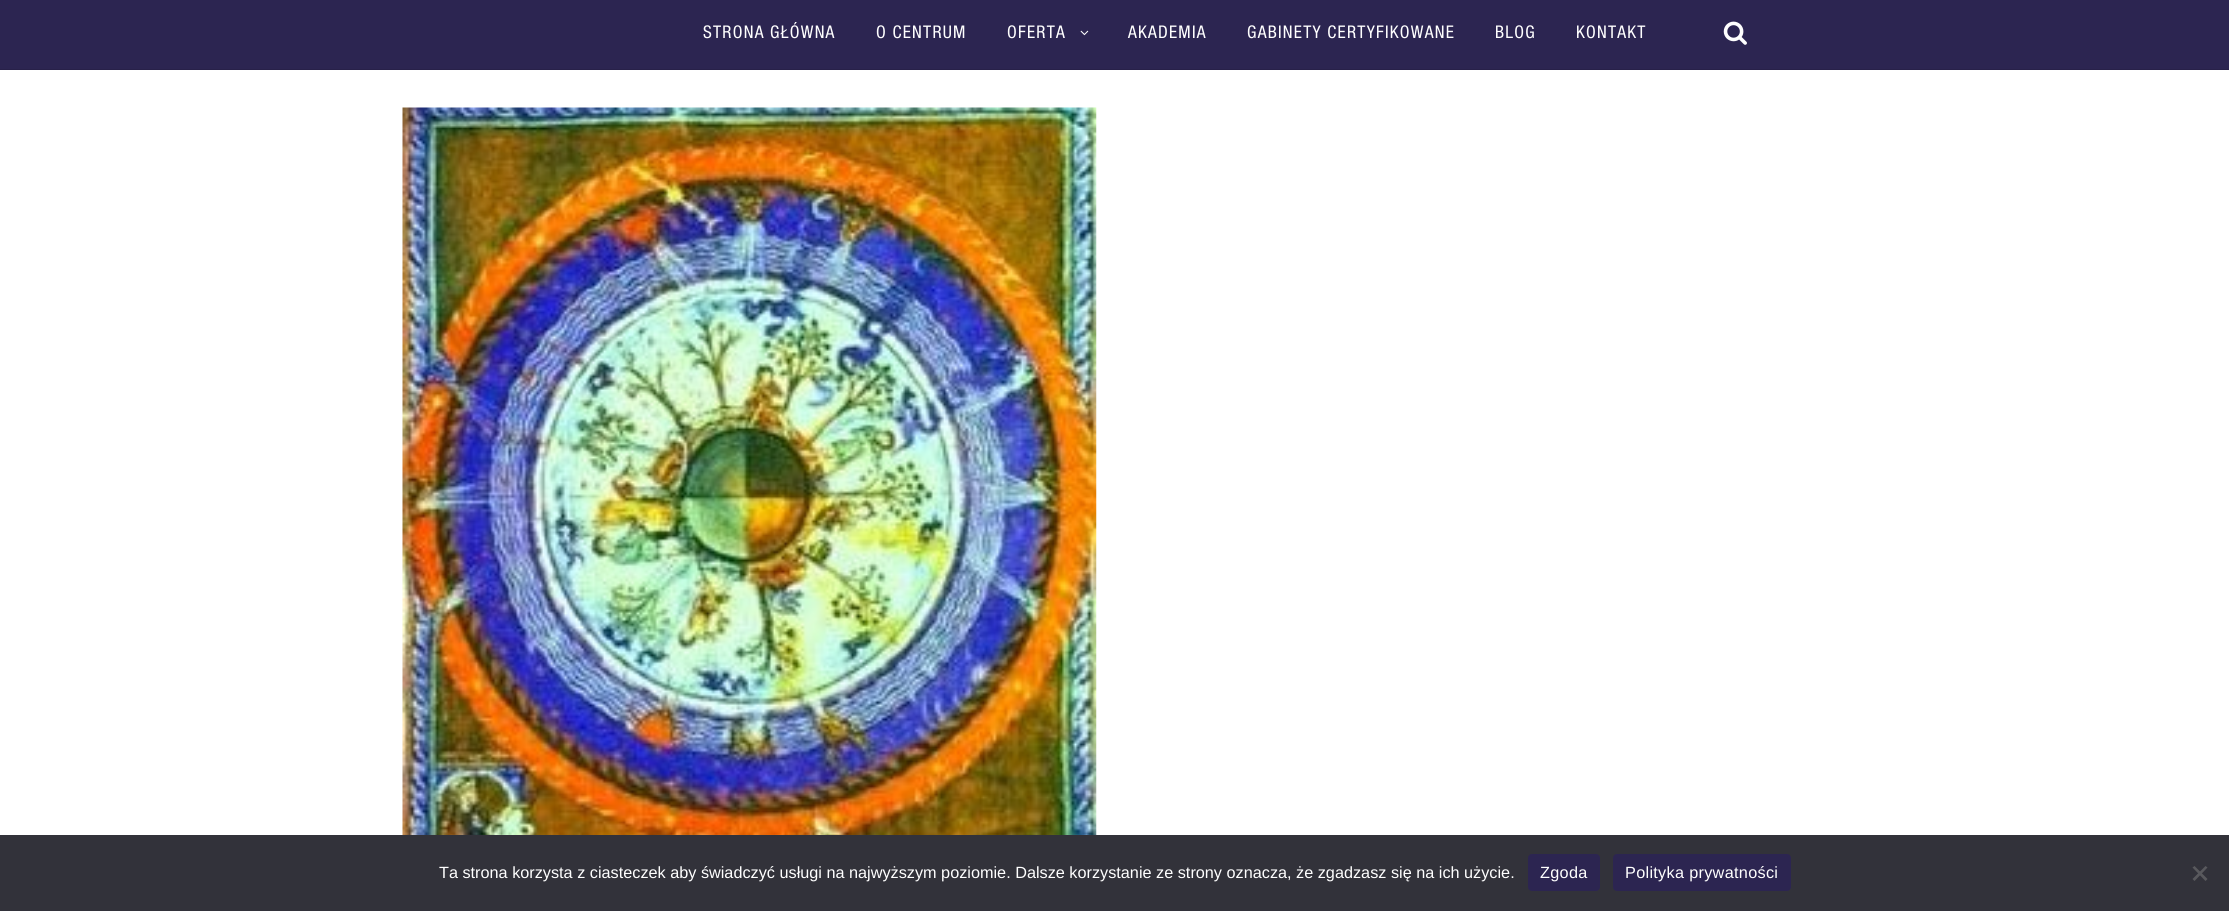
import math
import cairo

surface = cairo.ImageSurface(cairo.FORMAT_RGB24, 2229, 911)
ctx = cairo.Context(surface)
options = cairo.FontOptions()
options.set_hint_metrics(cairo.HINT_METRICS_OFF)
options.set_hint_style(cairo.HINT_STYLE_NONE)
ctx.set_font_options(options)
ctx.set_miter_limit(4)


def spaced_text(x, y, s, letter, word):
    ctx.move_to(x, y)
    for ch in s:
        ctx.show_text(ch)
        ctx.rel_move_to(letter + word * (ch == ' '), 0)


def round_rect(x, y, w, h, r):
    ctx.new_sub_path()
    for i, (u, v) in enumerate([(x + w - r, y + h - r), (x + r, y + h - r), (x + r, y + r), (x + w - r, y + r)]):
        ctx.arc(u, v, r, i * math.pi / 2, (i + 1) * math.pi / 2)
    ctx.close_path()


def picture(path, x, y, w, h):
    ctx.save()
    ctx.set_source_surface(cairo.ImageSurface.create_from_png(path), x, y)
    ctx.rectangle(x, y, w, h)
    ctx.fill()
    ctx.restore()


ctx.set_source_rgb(1, 1, 1)
ctx.paint()
ctx.set_source_rgb(0.173, 0.145, 0.318)
ctx.rectangle(0, 0, 2229, 69)
ctx.fill()
ctx.set_source_rgb(0.157, 0.129, 0.286)
ctx.rectangle(0, 69, 2229, 1)
ctx.fill()
ctx.select_font_face("Helvetica Neue")
ctx.set_font_size(17.5)
ctx.set_source_rgb(1, 1, 1)
spaced_text(703, 38, "STRONA GŁÓWNA", 1.25, 0)
spaced_text(876, 38, "O CENTRUM", 1.25, 0)
spaced_text(1007, 38, "OFERTA", 1.25, 0)
picture("img1.png", 1080, 30, 9, 6)
spaced_text(1128, 38, "AKADEMIA", 1.25, 0)
spaced_text(1247, 38, "GABINETY CERTYFIKOWANE", 1.25, 0)
spaced_text(1495, 38, "BLOG", 1.25, 0)
spaced_text(1576, 38, "KONTAKT", 1.25, 0)
picture("img2.png", 1723, 21, 24, 24)
picture("img3.png", 402, 107, 695, 728)
ctx.set_source_rgb(0.196, 0.196, 0.227)
ctx.rectangle(0, 835, 2229, 76)
ctx.fill()
ctx.select_font_face("Liberation Sans")
ctx.set_font_size(16.25)
ctx.set_source_rgb(1, 1, 1)
ctx.move_to(439, 878)
ctx.show_text("Ta strona korzysta z ciasteczek aby świadczyć usługi na najwyższym poziomie. Dalsze korzystanie ze strony oznacza, że zgadzasz się na ich użycie.")
ctx.set_source_rgb(0.173, 0.145, 0.318)
round_rect(1528, 854, 72, 37, 4)
ctx.fill()
ctx.set_source_rgb(1, 1, 1)
spaced_text(1540, 878, "Zgoda", 0.3, 0)
ctx.set_source_rgb(0.173, 0.145, 0.318)
round_rect(1613, 854, 178, 37, 4)
ctx.fill()
ctx.set_source_rgb(1, 1, 1)
spaced_text(1625, 878, "Polityka prywatności", 0.3, 0)
ctx.set_source_rgb(0.349, 0.349, 0.365)
ctx.new_path()
ctx.move_to(2205.5, 866)
ctx.line_to(2207.5, 867.5)
ctx.line_to(2194.5, 881)
ctx.line_to(2192.5, 879)
ctx.close_path()
ctx.fill()
ctx.new_path()
ctx.move_to(2192.5, 867.5)
ctx.line_to(2194.5, 866)
ctx.line_to(2207.5, 879)
ctx.line_to(2205.5, 881)
ctx.close_path()
ctx.fill()
surface.write_to_png("page.png")
